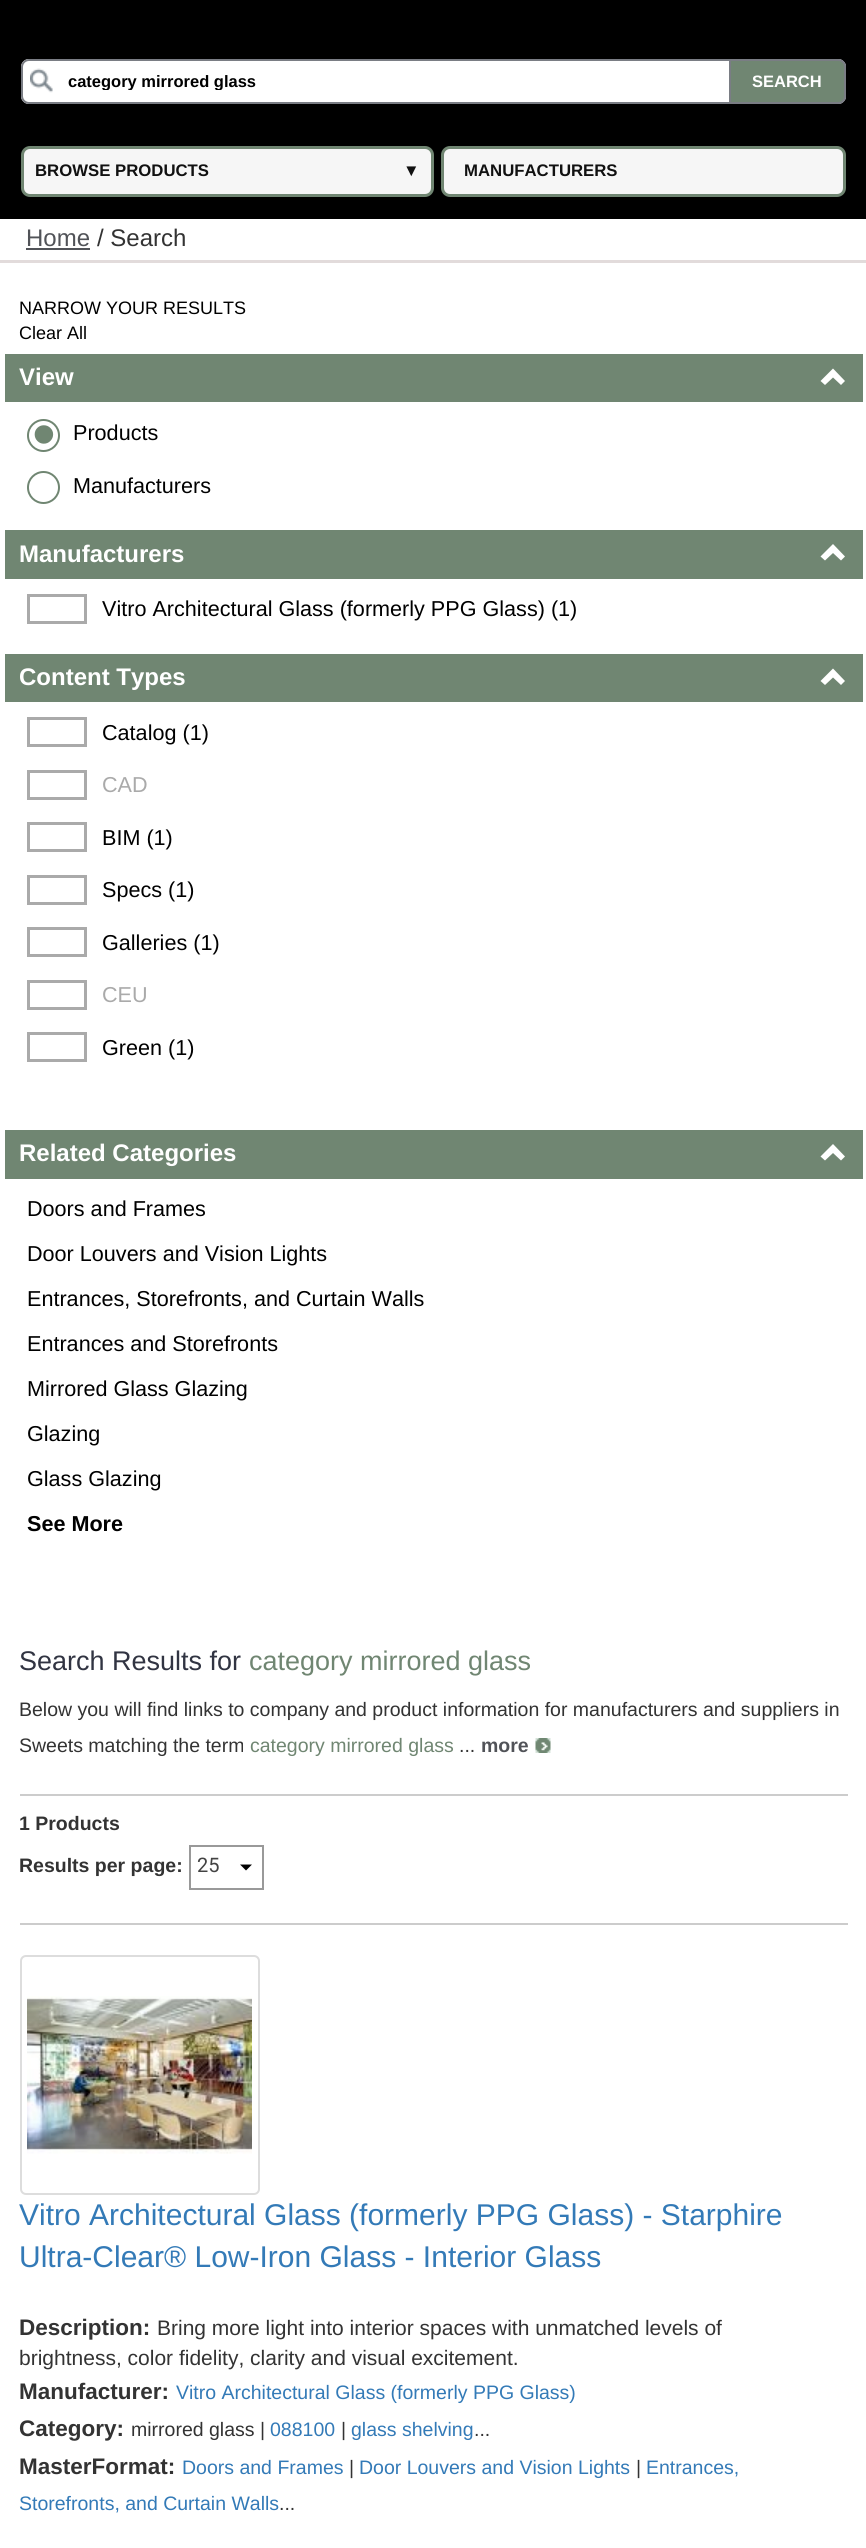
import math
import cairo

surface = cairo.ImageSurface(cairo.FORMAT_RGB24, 866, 2548)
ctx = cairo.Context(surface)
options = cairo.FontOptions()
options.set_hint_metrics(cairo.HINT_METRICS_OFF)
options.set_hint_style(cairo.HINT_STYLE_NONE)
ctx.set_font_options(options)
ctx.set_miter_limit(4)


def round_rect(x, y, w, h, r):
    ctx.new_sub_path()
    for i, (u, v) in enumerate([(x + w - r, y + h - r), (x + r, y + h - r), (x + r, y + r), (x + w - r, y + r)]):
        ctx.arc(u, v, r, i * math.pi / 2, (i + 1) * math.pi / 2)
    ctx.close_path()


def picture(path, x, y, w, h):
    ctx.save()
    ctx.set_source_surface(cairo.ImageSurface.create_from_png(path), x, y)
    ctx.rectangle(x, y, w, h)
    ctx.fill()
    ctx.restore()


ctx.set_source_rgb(1, 1, 1)
ctx.paint()
ctx.set_source_rgb(0, 0, 0)
ctx.rectangle(0, 0, 866, 219)
ctx.fill()
ctx.set_source_rgb(1, 1, 1)
round_rect(21, 59, 825, 45, 8)
ctx.fill()
picture("img1.png", 30, 68, 23, 25)
round_rect(22, 60, 823, 43, 7)
ctx.set_source_rgb(0.478, 0.49, 0.518)
ctx.stroke()
ctx.save()
ctx.rectangle(68, 72, 762, 18)
ctx.clip()
ctx.select_font_face("Liberation Sans", cairo.FONT_SLANT_NORMAL, cairo.FONT_WEIGHT_BOLD)
ctx.set_font_size(16.5)
ctx.set_source_rgb(0, 0, 0)
ctx.move_to(68, 87)
ctx.show_text("category mirrored glass")
ctx.restore()
ctx.set_source_rgb(0.439, 0.525, 0.447)
ctx.new_path()
ctx.move_to(730, 60)
ctx.line_to(838, 60)
ctx.curve_to(842, 60, 845, 63, 845, 67)
ctx.line_to(845, 96)
ctx.curve_to(845, 100, 842, 103, 838, 103)
ctx.line_to(730, 103)
ctx.close_path()
ctx.fill_preserve()
ctx.set_source_rgb(0.478, 0.49, 0.518)
ctx.stroke()
ctx.select_font_face("Liberation Sans", cairo.FONT_SLANT_NORMAL, cairo.FONT_WEIGHT_BOLD)
ctx.set_font_size(16.5)
ctx.set_source_rgb(1, 1, 1)
ctx.move_to(752, 87)
ctx.show_text("SEARCH")
ctx.set_source_rgb(0.961, 0.961, 0.961)
round_rect(22.5, 147.5, 410, 48, 7.5)
ctx.fill_preserve()
ctx.set_source_rgb(0.439, 0.525, 0.447)
ctx.set_line_width(3)
ctx.stroke()
ctx.set_font_size(16.75)
ctx.set_source_rgb(0.067, 0.067, 0.067)
ctx.move_to(35, 176)
ctx.show_text("BROWSE PRODUCTS")
ctx.move_to(403, 176)
ctx.show_text("▼")
ctx.set_source_rgb(0.961, 0.961, 0.961)
round_rect(442.5, 147.5, 402, 48, 7.5)
ctx.fill_preserve()
ctx.set_source_rgb(0.439, 0.525, 0.447)
ctx.stroke()
ctx.set_source_rgb(0.067, 0.067, 0.067)
ctx.move_to(464, 176)
ctx.show_text("MANUFACTURERS")
ctx.set_source_rgb(0.886, 0.859, 0.859)
ctx.rectangle(0, 260, 866, 3)
ctx.fill()
ctx.select_font_face("Liberation Sans")
ctx.set_font_size(24)
ctx.set_source_rgb(0.318, 0.325, 0.345)
ctx.move_to(26, 246)
ctx.show_text("Home")
ctx.rectangle(26, 248, 64, 2)
ctx.fill()
ctx.set_source_rgb(0.2, 0.2, 0.2)
ctx.move_to(97, 246)
ctx.show_text("/ Search")
ctx.set_font_size(18)
ctx.set_source_rgb(0, 0, 0)
ctx.move_to(19, 314)
ctx.show_text("NARROW YOUR RESULTS")
ctx.move_to(19, 339)
ctx.show_text("Clear All")
ctx.set_source_rgb(0.439, 0.525, 0.447)
ctx.rectangle(5, 354, 858, 48)
ctx.fill()
ctx.select_font_face("Liberation Sans", cairo.FONT_SLANT_NORMAL, cairo.FONT_WEIGHT_BOLD)
ctx.set_font_size(24)
ctx.set_source_rgb(1, 1, 1)
ctx.move_to(19, 385)
ctx.show_text("View")
ctx.new_path()
ctx.move_to(845, 381)
ctx.line_to(841, 385)
ctx.line_to(833, 377.5)
ctx.line_to(825, 385)
ctx.line_to(820.5, 381)
ctx.line_to(833, 368.5)
ctx.close_path()
ctx.fill()
ctx.arc(43.5, 435.5, 15.5, 0, 2 * math.pi)
ctx.set_source_rgb(0.439, 0.525, 0.447)
ctx.set_line_width(2)
ctx.stroke()
ctx.select_font_face("Liberation Sans")
ctx.set_font_size(68)
ctx.move_to(32, 457)
ctx.show_text("•")
ctx.set_font_size(21.6)
ctx.set_source_rgb(0, 0, 0)
ctx.move_to(73, 440)
ctx.show_text("Products")
ctx.new_path()
ctx.arc(43.5, 487.5, 15.5, 0, 2 * math.pi)
ctx.set_source_rgb(0.439, 0.525, 0.447)
ctx.stroke()
ctx.set_source_rgb(0, 0, 0)
ctx.move_to(73, 493)
ctx.show_text("Manufacturers")
ctx.set_source_rgb(0.439, 0.525, 0.447)
ctx.rectangle(5, 530, 858, 49)
ctx.fill()
ctx.select_font_face("Liberation Sans", cairo.FONT_SLANT_NORMAL, cairo.FONT_WEIGHT_BOLD)
ctx.set_font_size(24)
ctx.set_source_rgb(1, 1, 1)
ctx.move_to(19, 562)
ctx.show_text("Manufacturers")
ctx.new_path()
ctx.move_to(845, 556.5)
ctx.line_to(841, 560.5)
ctx.line_to(833, 553)
ctx.line_to(825, 560.5)
ctx.line_to(820.5, 556.5)
ctx.line_to(833, 544)
ctx.close_path()
ctx.fill()
ctx.rectangle(28.5, 595.5, 57, 27)
ctx.set_source_rgb(0.667, 0.667, 0.667)
ctx.set_line_width(3)
ctx.stroke()
ctx.select_font_face("Liberation Sans")
ctx.set_font_size(21.6)
ctx.set_source_rgb(0, 0, 0)
ctx.move_to(102, 616)
ctx.show_text("Vitro Architectural Glass (formerly PPG Glass) (1)")
ctx.set_source_rgb(0.439, 0.525, 0.447)
ctx.rectangle(5, 654, 858, 48)
ctx.fill()
ctx.select_font_face("Liberation Sans", cairo.FONT_SLANT_NORMAL, cairo.FONT_WEIGHT_BOLD)
ctx.set_font_size(24)
ctx.set_source_rgb(1, 1, 1)
ctx.move_to(19, 685)
ctx.show_text("Content Types")
ctx.new_path()
ctx.move_to(845, 681)
ctx.line_to(841, 685)
ctx.line_to(833, 677.5)
ctx.line_to(825, 685)
ctx.line_to(820.5, 681)
ctx.line_to(833, 668.5)
ctx.close_path()
ctx.fill()
ctx.rectangle(28.5, 718.5, 57, 27)
ctx.set_source_rgb(0.667, 0.667, 0.667)
ctx.stroke()
ctx.select_font_face("Liberation Sans")
ctx.set_font_size(21.6)
ctx.set_source_rgb(0, 0, 0)
ctx.move_to(102, 740)
ctx.show_text("Catalog (1)")
ctx.rectangle(28.5, 771.5, 57, 27)
ctx.set_source_rgb(0.667, 0.667, 0.667)
ctx.stroke()
ctx.move_to(102, 792)
ctx.show_text("CAD")
ctx.rectangle(28.5, 823.5, 57, 27)
ctx.stroke()
ctx.set_source_rgb(0, 0, 0)
ctx.move_to(102, 845)
ctx.show_text("BIM (1)")
ctx.rectangle(28.5, 876.5, 57, 27)
ctx.set_source_rgb(0.667, 0.667, 0.667)
ctx.stroke()
ctx.set_source_rgb(0, 0, 0)
ctx.move_to(102, 897)
ctx.show_text("Specs (1)")
ctx.rectangle(28.5, 928.5, 57, 27)
ctx.set_source_rgb(0.667, 0.667, 0.667)
ctx.stroke()
ctx.set_source_rgb(0, 0, 0)
ctx.move_to(102, 950)
ctx.show_text("Galleries (1)")
ctx.rectangle(28.5, 981.5, 57, 27)
ctx.set_source_rgb(0.667, 0.667, 0.667)
ctx.stroke()
ctx.move_to(102, 1002)
ctx.show_text("CEU")
ctx.rectangle(28.5, 1033.5, 57, 27)
ctx.stroke()
ctx.set_source_rgb(0, 0, 0)
ctx.move_to(102, 1055)
ctx.show_text("Green (1)")
ctx.set_source_rgb(0.439, 0.525, 0.447)
ctx.rectangle(5, 1130, 858, 49)
ctx.fill()
ctx.select_font_face("Liberation Sans", cairo.FONT_SLANT_NORMAL, cairo.FONT_WEIGHT_BOLD)
ctx.set_font_size(24)
ctx.set_source_rgb(1, 1, 1)
ctx.move_to(19, 1161)
ctx.show_text("Related Categories")
ctx.new_path()
ctx.move_to(845, 1156.5)
ctx.line_to(841, 1160.5)
ctx.line_to(833, 1153)
ctx.line_to(825, 1160.5)
ctx.line_to(820.5, 1156.5)
ctx.line_to(833, 1144)
ctx.close_path()
ctx.fill()
ctx.select_font_face("Liberation Sans")
ctx.set_font_size(21.6)
ctx.set_source_rgb(0, 0, 0)
ctx.move_to(27, 1216)
ctx.show_text("Doors and Frames")
ctx.move_to(27, 1261)
ctx.show_text("Door Louvers and Vision Lights")
ctx.move_to(27, 1306)
ctx.show_text("Entrances, Storefronts, and Curtain Walls")
ctx.move_to(27, 1351)
ctx.show_text("Entrances and Storefronts")
ctx.move_to(27, 1396)
ctx.show_text("Mirrored Glass Glazing")
ctx.move_to(27, 1441)
ctx.show_text("Glazing")
ctx.move_to(27, 1486)
ctx.show_text("Glass Glazing")
ctx.select_font_face("Liberation Sans", cairo.FONT_SLANT_NORMAL, cairo.FONT_WEIGHT_BOLD)
ctx.move_to(27, 1531)
ctx.show_text("See More")
ctx.select_font_face("Liberation Sans")
ctx.set_font_size(27)
ctx.set_source_rgb(0.192, 0.204, 0.259)
ctx.move_to(19, 1670)
ctx.show_text("Search Results for")
ctx.set_source_rgb(0.439, 0.525, 0.447)
ctx.move_to(249, 1670)
ctx.show_text("category mirrored glass")
ctx.set_font_size(19.5)
ctx.set_source_rgb(0.2, 0.2, 0.2)
ctx.move_to(19, 1716)
ctx.show_text("Below you will find links to company and product information for manufacturers and suppliers in")
ctx.move_to(19, 1752)
ctx.show_text("Sweets matching the term")
ctx.set_source_rgb(0.439, 0.525, 0.447)
ctx.move_to(250, 1752)
ctx.show_text("category mirrored glass")
ctx.set_source_rgb(0.2, 0.2, 0.2)
ctx.move_to(459, 1752)
ctx.show_text("...")
ctx.select_font_face("Liberation Sans", cairo.FONT_SLANT_NORMAL, cairo.FONT_WEIGHT_BOLD)
ctx.set_source_rgb(0.318, 0.325, 0.345)
ctx.move_to(481, 1752)
ctx.show_text("more")
picture("img2.png", 535, 1738, 16, 15)
ctx.set_source_rgb(0.8, 0.8, 0.8)
ctx.rectangle(20, 1794, 828, 2)
ctx.fill()
ctx.set_source_rgb(0.2, 0.2, 0.2)
ctx.move_to(19, 1830)
ctx.show_text("1 Products")
ctx.move_to(19, 1872)
ctx.show_text("Results per page:")
ctx.rectangle(190, 1846, 73, 43)
ctx.set_source_rgb(0.6, 0.6, 0.6)
ctx.set_line_width(2)
ctx.stroke()
ctx.select_font_face("Roboto")
ctx.set_font_size(20)
ctx.set_source_rgb(0.263, 0.263, 0.263)
ctx.move_to(197, 1872)
ctx.show_text("25")
ctx.set_source_rgb(0, 0, 0)
ctx.new_path()
ctx.move_to(240, 1864.5)
ctx.line_to(252, 1864.5)
ctx.line_to(246, 1870.5)
ctx.close_path()
ctx.fill()
ctx.set_source_rgb(0.8, 0.8, 0.8)
ctx.rectangle(20, 1923, 828, 2)
ctx.fill()
round_rect(21, 1956, 238, 238, 5)
ctx.set_source_rgb(0.867, 0.867, 0.867)
ctx.stroke()
picture("img3.png", 27, 1996, 225, 158)
ctx.select_font_face("Liberation Sans")
ctx.set_font_size(30)
ctx.set_source_rgb(0.2, 0.478, 0.718)
ctx.move_to(19, 2225)
ctx.show_text("Vitro Architectural Glass (formerly PPG Glass) - Starphire")
ctx.move_to(19, 2267)
ctx.show_text("Ultra-Clear® Low-Iron Glass - Interior Glass")
ctx.select_font_face("Liberation Sans", cairo.FONT_SLANT_NORMAL, cairo.FONT_WEIGHT_BOLD)
ctx.set_font_size(22.5)
ctx.set_source_rgb(0.2, 0.2, 0.2)
ctx.move_to(19, 2335)
ctx.show_text("Description:")
ctx.select_font_face("Liberation Sans")
ctx.set_font_size(21)
ctx.move_to(157, 2335)
ctx.show_text("Bring more light into interior spaces with unmatched levels of")
ctx.move_to(19, 2365)
ctx.show_text("brightness, color fidelity, clarity and visual excitement.")
ctx.select_font_face("Liberation Sans", cairo.FONT_SLANT_NORMAL, cairo.FONT_WEIGHT_BOLD)
ctx.set_font_size(22.5)
ctx.move_to(19, 2399)
ctx.show_text("Manufacturer:")
ctx.select_font_face("Liberation Sans")
ctx.set_font_size(19.5)
ctx.set_source_rgb(0.2, 0.478, 0.718)
ctx.move_to(176, 2399)
ctx.show_text("Vitro Architectural Glass (formerly PPG Glass)")
ctx.select_font_face("Liberation Sans", cairo.FONT_SLANT_NORMAL, cairo.FONT_WEIGHT_BOLD)
ctx.set_font_size(22.5)
ctx.set_source_rgb(0.2, 0.2, 0.2)
ctx.move_to(19, 2436)
ctx.show_text("Category:")
ctx.select_font_face("Liberation Sans")
ctx.set_font_size(19.5)
ctx.move_to(131, 2436)
ctx.show_text("mirrored glass |")
ctx.set_source_rgb(0.2, 0.478, 0.718)
ctx.move_to(270, 2436)
ctx.show_text("088100")
ctx.set_source_rgb(0.2, 0.2, 0.2)
ctx.move_to(341, 2436)
ctx.show_text("|")
ctx.set_source_rgb(0.2, 0.478, 0.718)
ctx.move_to(351, 2436)
ctx.show_text("glass shelving")
ctx.set_source_rgb(0.2, 0.2, 0.2)
ctx.move_to(474, 2436)
ctx.show_text("...")
ctx.select_font_face("Liberation Sans", cairo.FONT_SLANT_NORMAL, cairo.FONT_WEIGHT_BOLD)
ctx.set_font_size(22.5)
ctx.move_to(19, 2474)
ctx.show_text("MasterFormat:")
ctx.select_font_face("Liberation Sans")
ctx.set_font_size(19.5)
ctx.set_source_rgb(0.2, 0.478, 0.718)
ctx.move_to(182, 2474)
ctx.show_text("Doors and Frames")
ctx.set_source_rgb(0.2, 0.2, 0.2)
ctx.move_to(349, 2474)
ctx.show_text("|")
ctx.set_source_rgb(0.2, 0.478, 0.718)
ctx.move_to(359, 2474)
ctx.show_text("Door Louvers and Vision Lights")
ctx.set_source_rgb(0.2, 0.2, 0.2)
ctx.move_to(636, 2474)
ctx.show_text("|")
ctx.set_source_rgb(0.2, 0.478, 0.718)
ctx.move_to(646, 2474)
ctx.show_text("Entrances,")
ctx.move_to(19, 2510)
ctx.show_text("Storefronts, and Curtain Walls")
ctx.set_source_rgb(0.2, 0.2, 0.2)
ctx.move_to(279, 2510)
ctx.show_text("...")
surface.write_to_png("page.png")
